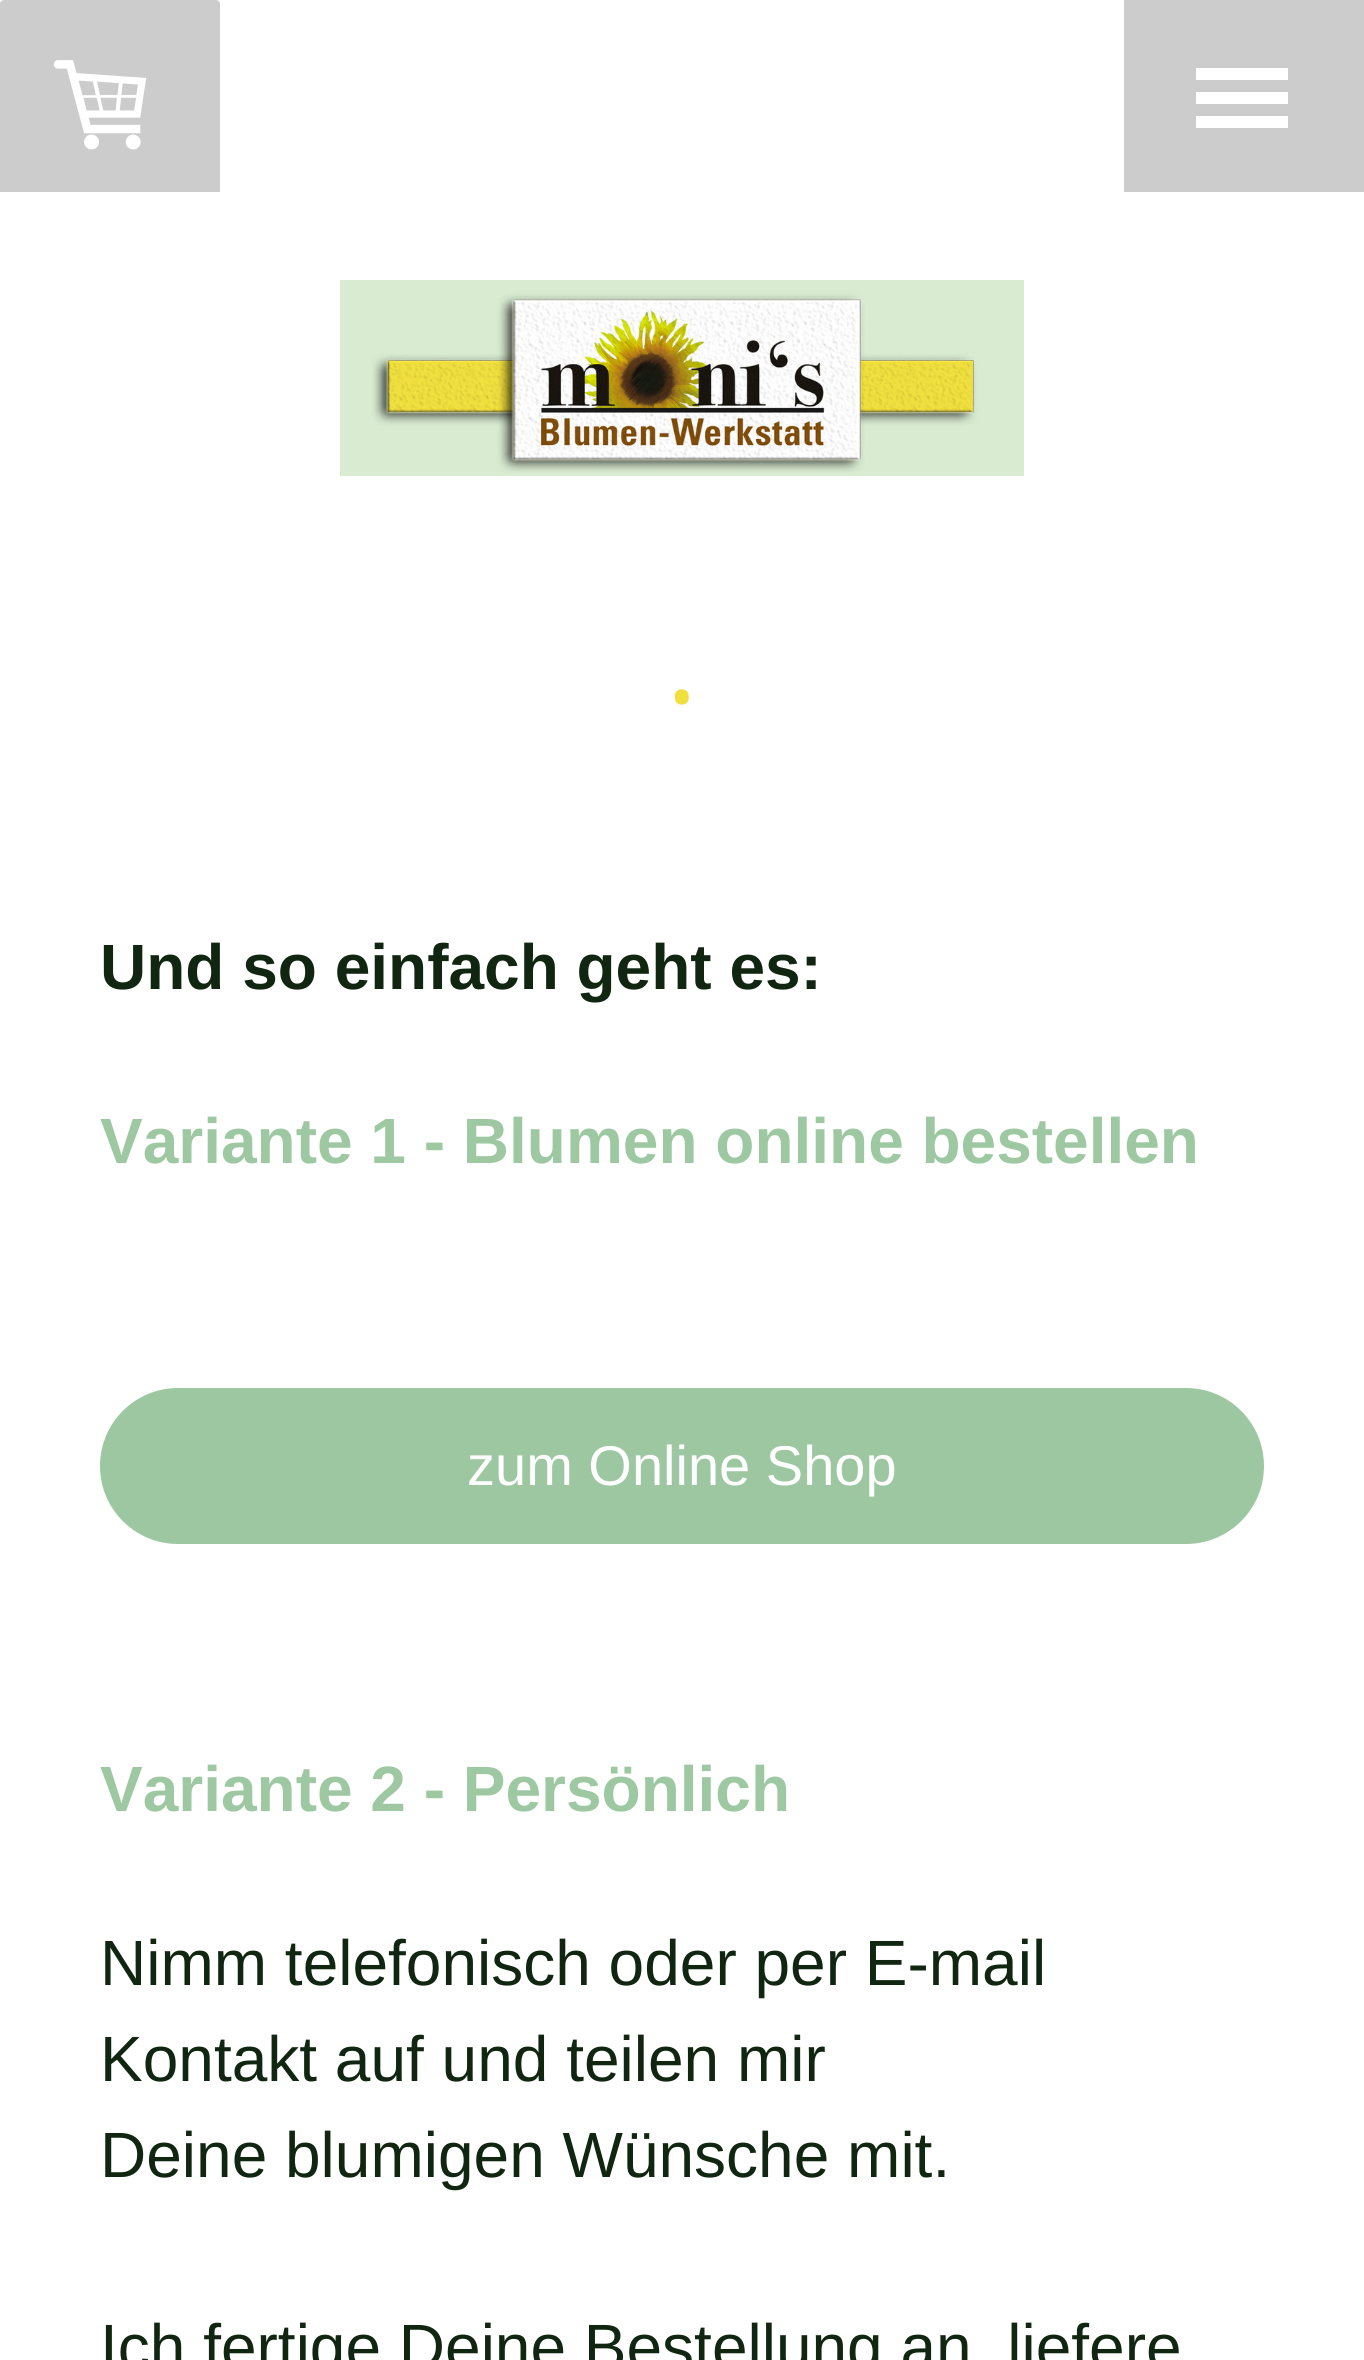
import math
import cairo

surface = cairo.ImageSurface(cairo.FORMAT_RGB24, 1364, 2360)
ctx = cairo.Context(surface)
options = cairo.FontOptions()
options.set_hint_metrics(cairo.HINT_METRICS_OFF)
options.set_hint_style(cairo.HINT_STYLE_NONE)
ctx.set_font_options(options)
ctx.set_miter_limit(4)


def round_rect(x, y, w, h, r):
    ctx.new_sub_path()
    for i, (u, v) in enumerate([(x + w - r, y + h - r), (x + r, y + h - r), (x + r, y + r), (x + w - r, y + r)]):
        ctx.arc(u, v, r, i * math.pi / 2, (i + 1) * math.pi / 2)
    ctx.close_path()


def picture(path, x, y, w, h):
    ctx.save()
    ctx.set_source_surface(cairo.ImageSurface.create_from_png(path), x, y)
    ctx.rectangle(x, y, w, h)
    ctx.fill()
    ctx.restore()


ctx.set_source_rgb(1, 1, 1)
ctx.paint()
ctx.set_source_rgb(0.8, 0.8, 0.8)
ctx.new_path()
ctx.move_to(4, 0)
ctx.line_to(216, 0)
ctx.curve_to(218, 0, 220, 2, 220, 4)
ctx.line_to(220, 192)
ctx.line_to(0, 192)
ctx.line_to(0, 4)
ctx.curve_to(0, 2, 2, 0, 4, 0)
ctx.close_path()
ctx.fill()
picture("img1.png", 53, 60, 94, 90)
ctx.rectangle(1124, 0, 240, 192)
ctx.fill()
ctx.set_source_rgb(1, 1, 1)
ctx.rectangle(1196, 92, 92, 12)
ctx.fill()
ctx.rectangle(1196, 68, 92, 12)
ctx.fill()
ctx.rectangle(1196, 116, 92, 12)
ctx.fill()
picture("img2.png", 340, 280, 684, 196)
ctx.select_font_face("Open Sans")
ctx.set_font_size(120)
ctx.set_source_rgb(0.945, 0.875, 0.239)
ctx.move_to(666, 703)
ctx.show_text(".")
ctx.select_font_face("Liberation Sans", cairo.FONT_SLANT_NORMAL, cairo.FONT_WEIGHT_BOLD)
ctx.set_font_size(64)
ctx.set_source_rgb(0.067, 0.149, 0.067)
ctx.move_to(100, 989)
ctx.show_text("Und so einfach geht es:")
ctx.set_source_rgb(0.616, 0.784, 0.635)
ctx.move_to(100, 1163)
ctx.show_text("Variante 1 - Blumen online bestellen")
ctx.set_source_rgb(0.612, 0.78, 0.631)
round_rect(102, 1390, 1160, 152, 76)
ctx.fill_preserve()
ctx.set_line_width(4)
ctx.stroke()
ctx.select_font_face("Liberation Sans")
ctx.set_font_size(56)
ctx.set_source_rgb(1, 1, 1)
ctx.move_to(467, 1485)
ctx.show_text("zum Online Shop")
ctx.select_font_face("Liberation Sans", cairo.FONT_SLANT_NORMAL, cairo.FONT_WEIGHT_BOLD)
ctx.set_font_size(64)
ctx.set_source_rgb(0.616, 0.784, 0.635)
ctx.move_to(100, 1811)
ctx.show_text("Variante 2 - Persönlich")
ctx.select_font_face("Liberation Sans")
ctx.set_source_rgb(0.067, 0.149, 0.067)
ctx.move_to(100, 1985)
ctx.show_text("Nimm telefonisch oder per E-mail")
ctx.move_to(100, 2081)
ctx.show_text("Kontakt auf und teilen mir")
ctx.move_to(100, 2177)
ctx.show_text("Deine blumigen Wünsche mit.")
ctx.move_to(100, 2369)
ctx.show_text("Ich fertige Deine Bestellung an, liefere")
surface.write_to_png("page.png")
